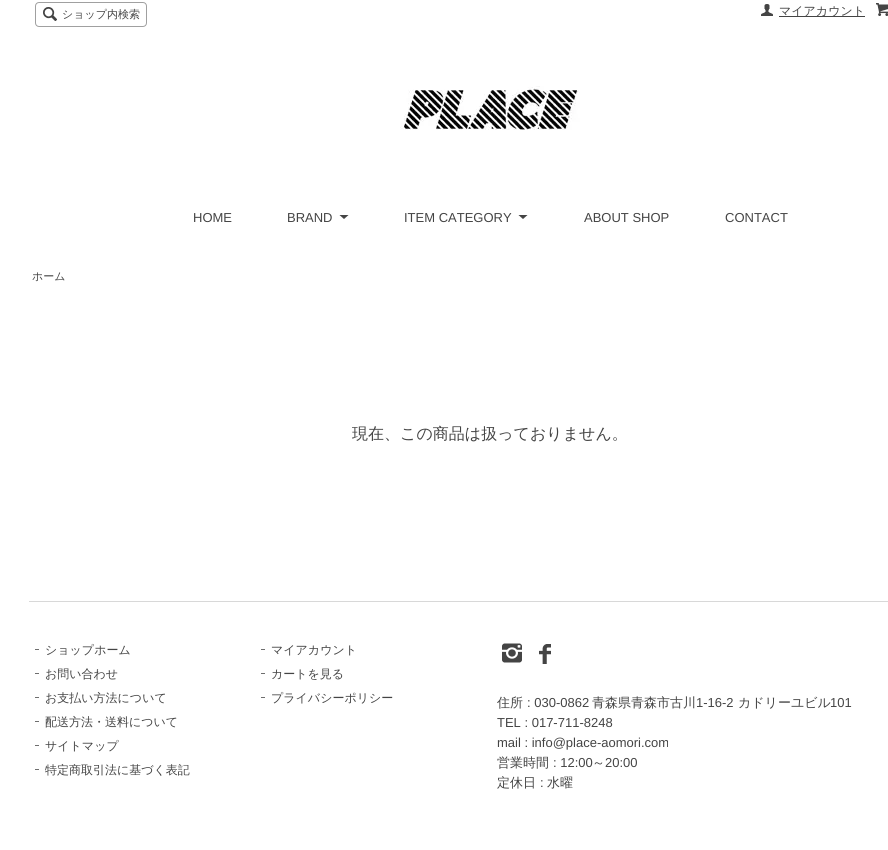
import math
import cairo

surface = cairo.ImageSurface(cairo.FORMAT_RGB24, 888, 850)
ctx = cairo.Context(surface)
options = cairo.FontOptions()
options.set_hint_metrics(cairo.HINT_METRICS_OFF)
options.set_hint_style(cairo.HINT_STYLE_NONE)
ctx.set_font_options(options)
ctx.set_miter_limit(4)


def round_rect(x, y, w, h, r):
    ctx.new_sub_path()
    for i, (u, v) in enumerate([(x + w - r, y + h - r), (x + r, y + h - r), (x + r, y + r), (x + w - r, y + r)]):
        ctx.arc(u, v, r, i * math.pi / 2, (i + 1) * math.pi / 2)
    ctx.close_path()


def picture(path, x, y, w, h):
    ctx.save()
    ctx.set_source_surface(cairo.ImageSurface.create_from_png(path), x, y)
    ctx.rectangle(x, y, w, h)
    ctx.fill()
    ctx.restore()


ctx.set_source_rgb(1, 1, 1)
ctx.paint()
round_rect(35.5, 2.5, 111, 24, 3.5)
ctx.set_source_rgb(0.627, 0.627, 0.627)
ctx.set_line_width(1)
ctx.stroke()
picture("img1.png", 43, 7, 14, 14)
ctx.select_font_face("WenQuanYi Zen Hei Medium")
ctx.set_font_size(11)
ctx.set_source_rgb(0.267, 0.267, 0.267)
ctx.move_to(62, 18)
ctx.show_text("ショップ内検索")
picture("img2.png", 761, 4, 12, 12)
ctx.rectangle(779, 16, 86, 1)
ctx.fill()
ctx.set_font_size(12)
ctx.move_to(779, 15)
ctx.show_text("マイアカウント")
picture("img3.png", 876, 3, 12, 13)
picture("img4.png", 400, 86, 180, 44)
ctx.select_font_face("Liberation Sans")
ctx.set_font_size(13)
ctx.move_to(193, 222)
ctx.show_text("HOME")
ctx.move_to(287, 222)
ctx.show_text("BRAND")
picture("img5.png", 339, 215, 10, 4)
ctx.move_to(404, 222)
ctx.show_text("ITEM CATEGORY")
picture("img5.png", 518, 215, 10, 4)
ctx.move_to(584, 222)
ctx.show_text("ABOUT SHOP")
ctx.move_to(725, 222)
ctx.show_text("CONTACT")
ctx.select_font_face("WenQuanYi Zen Hei Medium")
ctx.set_font_size(11)
ctx.move_to(32, 280)
ctx.show_text("ホーム")
ctx.set_font_size(16)
ctx.move_to(352, 439)
ctx.show_text("現在、この商品は扱っておりません。")
ctx.set_source_rgb(0.847, 0.847, 0.847)
ctx.rectangle(29, 601, 859, 1)
ctx.fill()
ctx.set_source_rgb(0.431, 0.431, 0.431)
ctx.rectangle(35, 649, 4, 1)
ctx.fill()
ctx.set_font_size(12)
ctx.set_source_rgb(0.267, 0.267, 0.267)
ctx.move_to(45, 654)
ctx.show_text("ショップホーム")
ctx.set_source_rgb(0.431, 0.431, 0.431)
ctx.rectangle(35, 673, 4, 1)
ctx.fill()
ctx.set_source_rgb(0.267, 0.267, 0.267)
ctx.move_to(45, 678)
ctx.show_text("お問い合わせ")
ctx.set_source_rgb(0.431, 0.431, 0.431)
ctx.rectangle(35, 697, 4, 1)
ctx.fill()
ctx.set_source_rgb(0.267, 0.267, 0.267)
ctx.move_to(45, 702)
ctx.show_text("お支払い方法について")
ctx.set_source_rgb(0.431, 0.431, 0.431)
ctx.rectangle(35, 721, 4, 1)
ctx.fill()
ctx.set_source_rgb(0.267, 0.267, 0.267)
ctx.move_to(45, 726)
ctx.show_text("配送方法・送料について")
ctx.set_source_rgb(0.431, 0.431, 0.431)
ctx.rectangle(35, 745, 4, 1)
ctx.fill()
ctx.set_source_rgb(0.267, 0.267, 0.267)
ctx.move_to(45, 750)
ctx.show_text("サイトマップ")
ctx.set_source_rgb(0.431, 0.431, 0.431)
ctx.rectangle(35, 769, 4, 1)
ctx.fill()
ctx.set_source_rgb(0.267, 0.267, 0.267)
ctx.move_to(45, 774)
ctx.show_text("特定商取引法に基づく表記")
ctx.set_source_rgb(0.431, 0.431, 0.431)
ctx.rectangle(261, 649, 4, 1)
ctx.fill()
ctx.set_source_rgb(0.267, 0.267, 0.267)
ctx.move_to(271, 654)
ctx.show_text("マイアカウント")
ctx.set_source_rgb(0.431, 0.431, 0.431)
ctx.rectangle(261, 673, 4, 1)
ctx.fill()
ctx.set_source_rgb(0.267, 0.267, 0.267)
ctx.move_to(271, 678)
ctx.show_text("カートを見る")
ctx.set_source_rgb(0.431, 0.431, 0.431)
ctx.rectangle(261, 697, 4, 1)
ctx.fill()
ctx.set_source_rgb(0.267, 0.267, 0.267)
ctx.move_to(271, 702)
ctx.show_text("プライバシーポリシー")
picture("img6.png", 502, 643, 20, 20)
picture("img7.png", 539, 644, 12, 20)
ctx.set_font_size(13)
ctx.move_to(497, 707)
ctx.show_text("住所")
ctx.select_font_face("Liberation Sans")
ctx.move_to(527, 707)
ctx.show_text(": 030-0862")
ctx.select_font_face("WenQuanYi Zen Hei Medium")
ctx.move_to(592, 707)
ctx.show_text("青森県青森市古川")
ctx.select_font_face("Liberation Sans")
ctx.move_to(696, 707)
ctx.show_text("1-16-2")
ctx.select_font_face("WenQuanYi Zen Hei Medium")
ctx.move_to(738, 707)
ctx.show_text("カドリーユビル")
ctx.select_font_face("Liberation Sans")
ctx.move_to(830, 707)
ctx.show_text("101")
ctx.move_to(497, 727)
ctx.show_text("TEL : 017-711-8248")
ctx.move_to(497, 747)
ctx.show_text("mail : info@place-aomori.com")
ctx.select_font_face("WenQuanYi Zen Hei Medium")
ctx.move_to(497, 767)
ctx.show_text("営業時間")
ctx.select_font_face("Liberation Sans")
ctx.move_to(553, 767)
ctx.show_text(": 12:00")
ctx.select_font_face("WenQuanYi Zen Hei Medium")
ctx.move_to(592, 767)
ctx.show_text("～")
ctx.select_font_face("Liberation Sans")
ctx.move_to(605, 767)
ctx.show_text("20:00")
ctx.select_font_face("WenQuanYi Zen Hei Medium")
ctx.move_to(497, 787)
ctx.show_text("定休日")
ctx.select_font_face("Liberation Sans")
ctx.move_to(540, 787)
ctx.show_text(":")
ctx.select_font_face("WenQuanYi Zen Hei Medium")
ctx.move_to(547, 787)
ctx.show_text("水曜")
surface.write_to_png("page.png")
